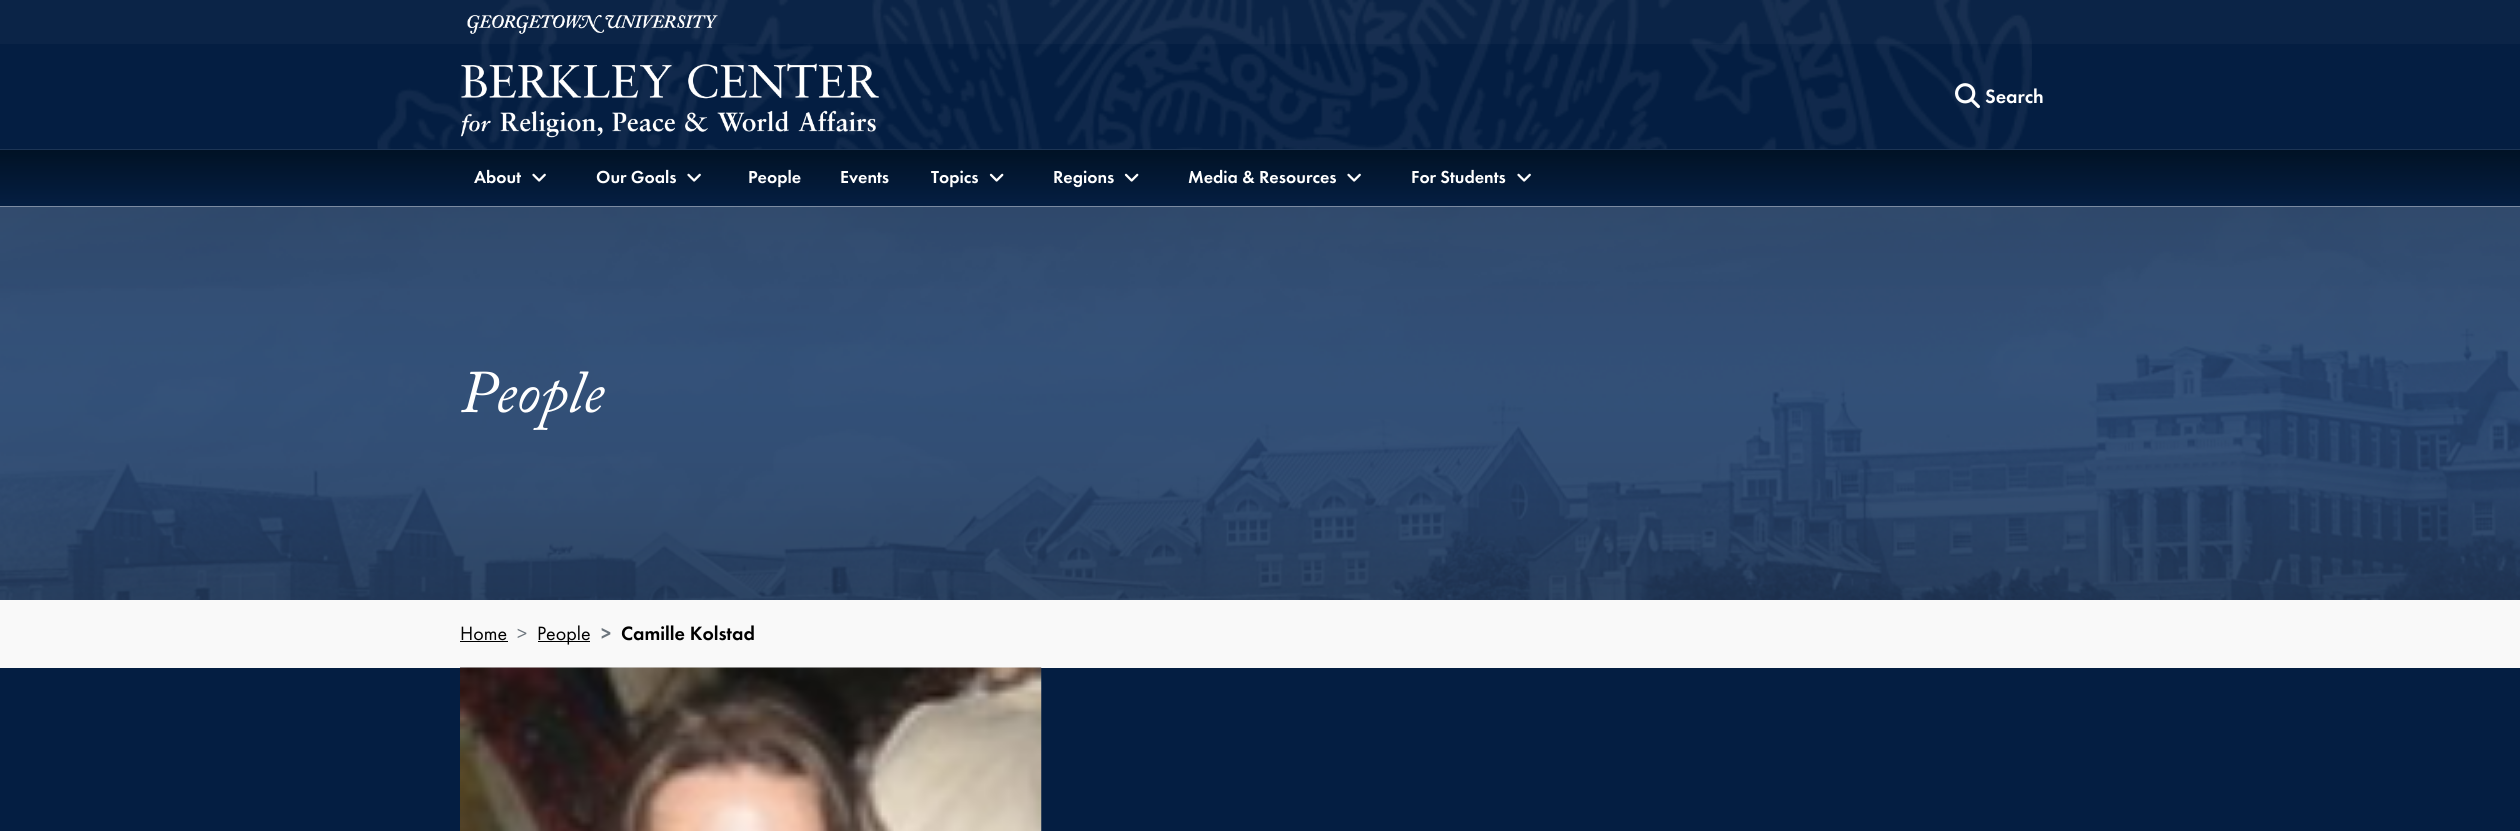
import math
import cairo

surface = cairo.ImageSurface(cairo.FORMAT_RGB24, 2520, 831)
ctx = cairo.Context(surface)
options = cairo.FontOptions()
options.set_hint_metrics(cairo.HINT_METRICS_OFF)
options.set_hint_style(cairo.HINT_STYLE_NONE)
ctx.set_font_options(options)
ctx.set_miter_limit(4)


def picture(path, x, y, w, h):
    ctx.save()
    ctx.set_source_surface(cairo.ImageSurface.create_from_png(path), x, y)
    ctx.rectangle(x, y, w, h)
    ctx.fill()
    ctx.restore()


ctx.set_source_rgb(0.973, 0.973, 0.973)
ctx.paint()
ctx.set_source_rgb(0.016, 0.118, 0.259)
ctx.rectangle(0, 0, 2520, 149)
ctx.fill()
picture("img1.png", 377, 0, 1655, 149)
ctx.set_source_rgba(1, 1, 1, 0.03)
ctx.rectangle(0, 0, 2520, 44)
ctx.fill()
picture("img2.png", 467, 15, 251, 19)
picture("img3.png", 460, 63, 419, 75)
picture("img4.png", 1955, 83, 25, 26)
ctx.select_font_face("Futura PT Medium")
ctx.set_font_size(20)
ctx.set_source_rgb(1, 1, 1)
ctx.move_to(1985, 103)
ctx.show_text("Search")
gradient = cairo.LinearGradient(1260, 150, 1260, 206)
gradient.add_color_stop_rgba(0, 0.004, 0.071, 0.145, 1)
gradient.add_color_stop_rgba(1, 0.016, 0.118, 0.259, 1)
ctx.set_source(gradient)
ctx.rectangle(0, 150, 2520, 56)
ctx.fill()
ctx.set_source_rgb(0.114, 0.208, 0.333)
ctx.rectangle(0, 149, 2520, 1)
ctx.fill()
ctx.set_font_size(18)
ctx.set_source_rgb(1, 1, 1)
ctx.move_to(474, 183)
ctx.show_text("About")
picture("img5.png", 532, 173, 14, 9)
ctx.move_to(596, 183)
ctx.show_text("Our Goals")
picture("img5.png", 687, 173, 14, 9)
ctx.move_to(748, 183)
ctx.show_text("People")
ctx.move_to(840, 183)
ctx.show_text("Events")
ctx.move_to(931, 183)
ctx.show_text("Topics")
picture("img6.png", 989, 173, 15, 9)
ctx.move_to(1053, 183)
ctx.show_text("Regions")
picture("img6.png", 1124, 173, 15, 9)
ctx.move_to(1188, 183)
ctx.show_text("Media & Resources")
picture("img5.png", 1347, 173, 14, 9)
ctx.move_to(1411, 183)
ctx.show_text("For Students")
picture("img5.png", 1517, 173, 14, 9)
ctx.set_source_rgb(0.871, 0.886, 0.902)
ctx.rectangle(0, 206, 2520, 1)
ctx.fill()
picture("img7.png", 0, 206, 2520, 394)
ctx.select_font_face("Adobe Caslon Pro", cairo.FONT_SLANT_ITALIC)
ctx.set_font_size(60)
ctx.set_source_rgb(1, 1, 1)
ctx.move_to(460, 412)
ctx.show_text("People")
ctx.select_font_face("Futura PT")
ctx.set_font_size(20)
ctx.set_source_rgb(0, 0, 0)
ctx.move_to(460, 640)
ctx.show_text("Home")
ctx.rectangle(460, 641, 48, 1)
ctx.fill()
ctx.set_source_rgb(0.424, 0.459, 0.49)
ctx.move_to(517, 640)
ctx.show_text(">")
ctx.set_source_rgb(0, 0, 0)
ctx.rectangle(538, 641, 52, 1)
ctx.fill()
ctx.move_to(537, 640)
ctx.show_text("People")
ctx.select_font_face("Futura PT Medium")
ctx.set_source_rgb(0.424, 0.459, 0.49)
ctx.move_to(601, 640)
ctx.show_text(">")
ctx.set_source_rgb(0, 0, 0)
ctx.move_to(621, 640)
ctx.show_text("Camille Kolstad")
ctx.set_source_rgb(0.016, 0.118, 0.259)
ctx.rectangle(0, 668, 2520, 163)
ctx.fill()
picture("img8.png", 460, 667, 582, 164)
surface.write_to_png("page.png")
